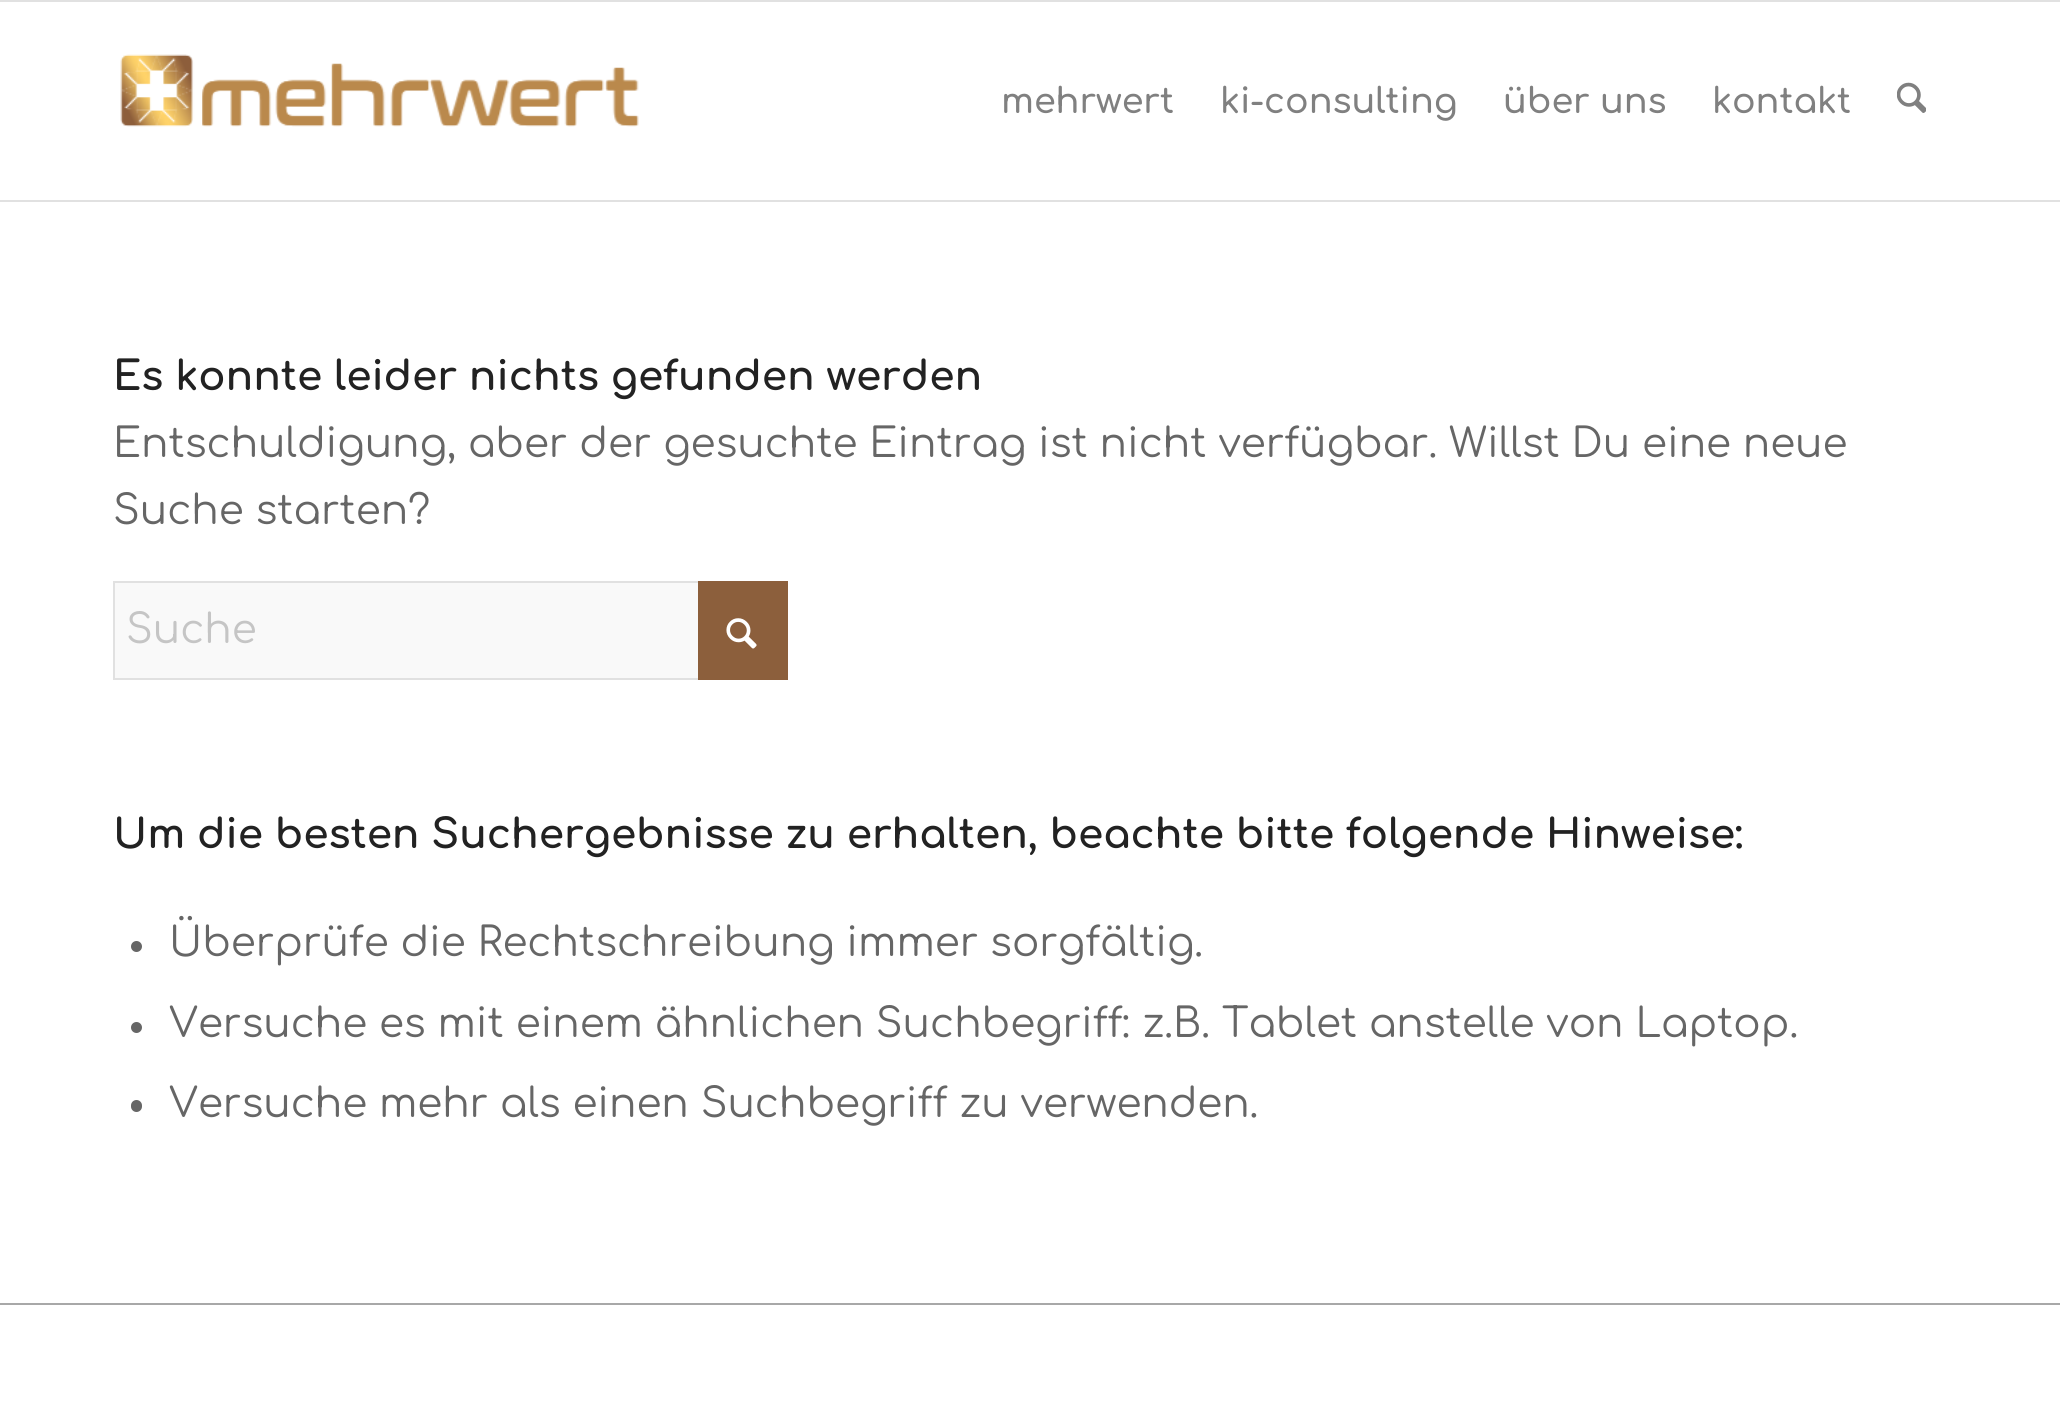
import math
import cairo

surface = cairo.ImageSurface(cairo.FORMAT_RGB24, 2060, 1411)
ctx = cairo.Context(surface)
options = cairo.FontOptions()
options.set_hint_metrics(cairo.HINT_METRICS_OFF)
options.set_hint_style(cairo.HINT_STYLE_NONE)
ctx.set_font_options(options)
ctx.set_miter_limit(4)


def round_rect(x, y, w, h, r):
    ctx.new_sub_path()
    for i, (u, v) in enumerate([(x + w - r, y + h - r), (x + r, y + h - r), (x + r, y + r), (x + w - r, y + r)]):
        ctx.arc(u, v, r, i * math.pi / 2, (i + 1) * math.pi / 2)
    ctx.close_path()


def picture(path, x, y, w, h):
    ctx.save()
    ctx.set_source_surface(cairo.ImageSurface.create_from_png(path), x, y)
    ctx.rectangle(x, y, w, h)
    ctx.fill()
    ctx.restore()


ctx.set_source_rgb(1, 1, 1)
ctx.paint()
ctx.set_source_rgb(0.882, 0.882, 0.882)
ctx.rectangle(0, 0, 2060, 2)
ctx.fill()
ctx.rectangle(0, 200, 2060, 2)
ctx.fill()
picture("img1.png", 120, 54, 519, 73)
ctx.select_font_face("Comfortaa SemiBold")
ctx.set_font_size(35)
ctx.set_source_rgb(0.502, 0.502, 0.502)
ctx.move_to(1001, 113)
ctx.show_text("mehrwert")
ctx.move_to(1220, 113)
ctx.show_text("ki-consulting")
ctx.move_to(1503, 113)
ctx.show_text("über uns")
ctx.move_to(1712, 113)
ctx.show_text("kontakt")
picture("img2.png", 1897, 82, 29, 31)
ctx.select_font_face("Comfortaa", cairo.FONT_SLANT_NORMAL, cairo.FONT_WEIGHT_BOLD)
ctx.set_font_size(40.5)
ctx.set_source_rgb(0.133, 0.133, 0.133)
ctx.move_to(113, 390)
ctx.show_text("Es konnte leider nichts gefunden werden")
ctx.select_font_face("Comfortaa")
ctx.set_source_rgb(0.4, 0.4, 0.4)
ctx.move_to(113, 457)
ctx.show_text("Entschuldigung, aber der gesuchte Eintrag ist nicht verfügbar. Willst Du eine neue")
ctx.move_to(113, 524)
ctx.show_text("Suche starten?")
ctx.set_source_rgb(0.973, 0.973, 0.973)
ctx.rectangle(115, 583, 583, 95)
ctx.fill()
ctx.rectangle(114, 582, 673, 97)
ctx.set_source_rgb(0.882, 0.882, 0.882)
ctx.stroke()
ctx.set_source_rgb(0.773, 0.773, 0.773)
ctx.move_to(126, 643)
ctx.show_text("Suche")
ctx.set_source_rgb(0.549, 0.373, 0.235)
ctx.rectangle(698, 581, 90, 99)
ctx.fill()
picture("img3.png", 726, 618, 31, 31)
ctx.select_font_face("Comfortaa", cairo.FONT_SLANT_NORMAL, cairo.FONT_WEIGHT_BOLD)
ctx.set_source_rgb(0.133, 0.133, 0.133)
ctx.move_to(113, 848)
ctx.show_text("Um die besten Suchergebnisse zu erhalten, beachte bitte folgende Hinweise:")
ctx.set_source_rgb(0.4, 0.4, 0.4)
ctx.new_path()
ctx.arc(136.5, 946.5, 5.5, 0, 2 * math.pi)
ctx.fill()
ctx.select_font_face("Comfortaa")
ctx.move_to(169, 956)
ctx.show_text("Überprüfe die Rechtschreibung immer sorgfältig.")
ctx.new_path()
ctx.arc(136.5, 1027.5, 5.5, 0, 2 * math.pi)
ctx.fill()
ctx.move_to(169, 1037)
ctx.show_text("Versuche es mit einem ähnlichen Suchbegriff: z.B. Tablet anstelle von Laptop.")
round_rect(131, 1100, 11, 12, 5.5)
ctx.fill()
ctx.move_to(169, 1117)
ctx.show_text("Versuche mehr als einen Suchbegriff zu verwenden.")
ctx.set_source_rgb(0.659, 0.659, 0.659)
ctx.rectangle(0, 1303, 2060, 2)
ctx.fill()
surface.write_to_png("page.png")
